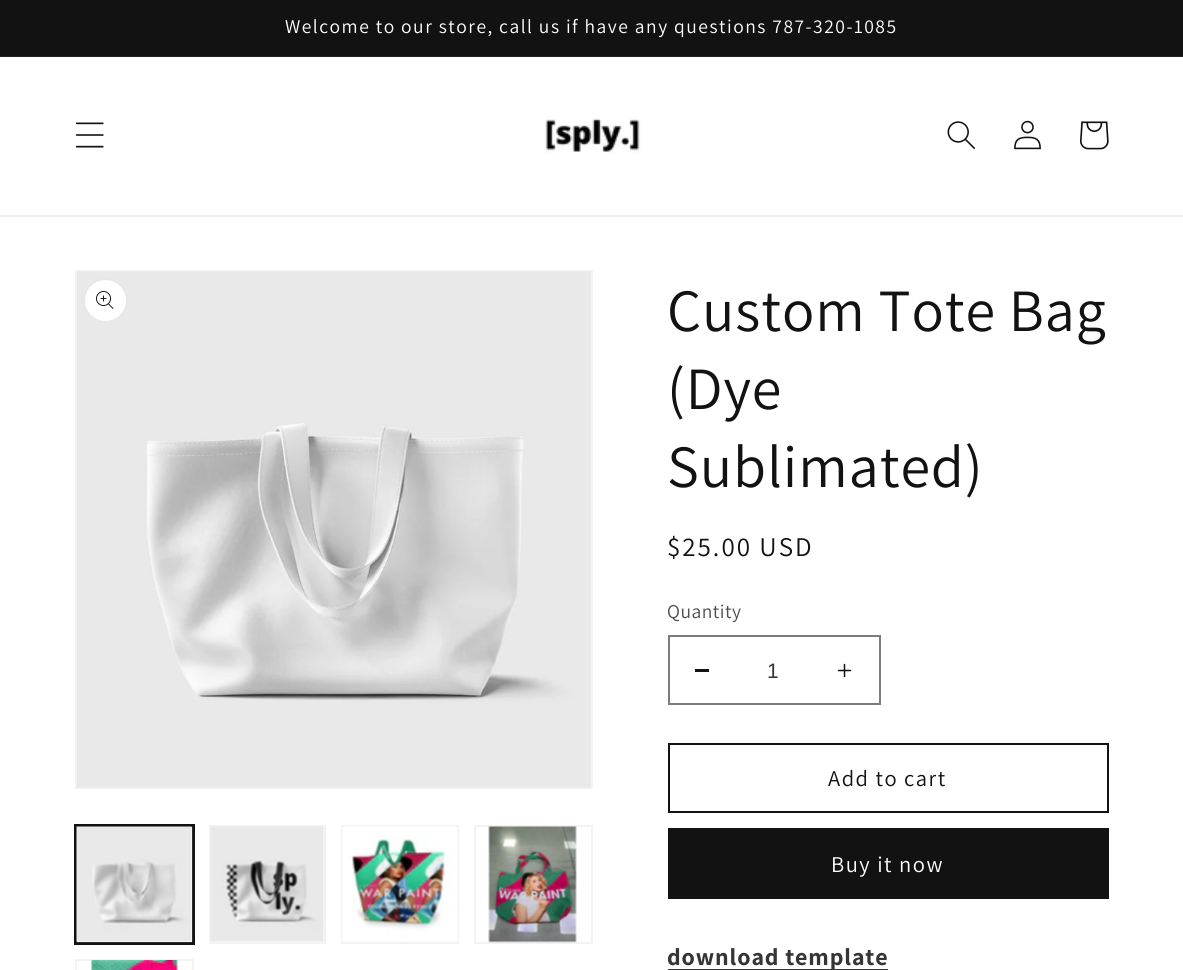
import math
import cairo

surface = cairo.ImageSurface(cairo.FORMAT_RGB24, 1183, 970)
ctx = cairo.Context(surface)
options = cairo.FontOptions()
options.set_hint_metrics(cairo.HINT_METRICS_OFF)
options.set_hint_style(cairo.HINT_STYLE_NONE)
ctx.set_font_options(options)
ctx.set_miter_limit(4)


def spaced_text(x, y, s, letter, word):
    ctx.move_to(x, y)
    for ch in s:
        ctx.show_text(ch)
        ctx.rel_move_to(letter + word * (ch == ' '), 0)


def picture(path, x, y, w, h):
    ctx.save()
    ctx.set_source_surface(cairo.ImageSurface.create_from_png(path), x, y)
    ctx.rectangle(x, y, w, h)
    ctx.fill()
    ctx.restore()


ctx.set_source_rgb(1, 1, 1)
ctx.paint()
ctx.set_source_rgb(0.071, 0.071, 0.071)
ctx.rectangle(0, 0, 1183, 56)
ctx.fill()
ctx.set_source_rgb(0.145, 0.145, 0.145)
ctx.rectangle(0, 56, 1183, 1)
ctx.fill()
ctx.select_font_face("Assistant")
ctx.set_font_size(19.5)
ctx.set_source_rgb(1, 1, 1)
spaced_text(285, 33, "Welcome to our store, call us if have any questions 787-320-1085", 1.5, 0)
ctx.set_source_rgb(0.925, 0.925, 0.925)
ctx.rectangle(0, 215, 1183, 2)
ctx.fill()
picture("img1.png", 75, 122, 29, 26)
picture("img2.png", 545, 118, 97, 35)
picture("img3.png", 947, 121, 28, 28)
picture("img4.png", 1014, 120, 27, 30)
picture("img5.png", 1080, 121, 29, 29)
ctx.rectangle(76, 271, 516, 517)
ctx.set_source_rgb(0.953, 0.953, 0.953)
ctx.stroke()
picture("img6.png", 77, 271, 514, 517)
ctx.set_source_rgb(1, 1, 1)
ctx.arc(105.5, 300.5, 22.5, 0, 2 * math.pi)
ctx.fill()
ctx.arc(105.5, 300.5, 21.5, 0, 2 * math.pi)
ctx.set_source_rgba(0.071, 0.071, 0.071, 0.1)
ctx.stroke()
picture("img7.png", 96, 291, 18, 18)
ctx.rectangle(75, 825, 119, 119)
ctx.set_source_rgb(0.071, 0.071, 0.071)
ctx.stroke()
ctx.rectangle(76, 826, 117, 117)
ctx.stroke()
picture("img8.png", 76, 826, 117, 117)
ctx.rectangle(210, 826, 115, 117)
ctx.set_source_rgb(0.953, 0.953, 0.953)
ctx.stroke()
picture("img9.png", 210, 826, 114, 116)
ctx.rectangle(342, 826, 116, 117)
ctx.stroke()
picture("img10.png", 342, 826, 116, 116)
ctx.rectangle(475, 826, 117, 117)
ctx.stroke()
picture("img11.png", 488, 826, 89, 117)
ctx.rectangle(76, 960, 117, 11)
ctx.stroke()
picture("img12.png", 91, 960, 87, 10)
ctx.set_font_size(60)
ctx.set_source_rgb(0.071, 0.071, 0.071)
spaced_text(667, 331, "Custom Tote Bag", 0.9, 0)
spaced_text(667, 409, "(Dye", 0.9, 0)
spaced_text(667, 487, "Sublimated)", 0.9, 0)
ctx.set_font_size(27)
spaced_text(667, 556, "$25.00 USD", 2, 0)
ctx.set_font_size(19.5)
ctx.set_source_rgb(0.302, 0.302, 0.302)
spaced_text(667, 618, "Quantity", 0.5, 0)
ctx.set_source_rgb(0.071, 0.071, 0.071)
ctx.rectangle(695, 669, 14, 3)
ctx.fill()
picture("img13.png", 837, 663, 15, 15)
ctx.rectangle(669, 636, 211, 68)
ctx.set_source_rgb(0.49, 0.49, 0.49)
ctx.stroke()
ctx.select_font_face("Liberation Sans")
ctx.set_font_size(21)
ctx.set_source_rgb(0.208, 0.208, 0.208)
ctx.move_to(767, 678)
ctx.show_text("1")
ctx.rectangle(669, 744, 439, 68)
ctx.set_source_rgb(0.071, 0.071, 0.071)
ctx.stroke()
ctx.select_font_face("Assistant")
ctx.set_font_size(22.5)
spaced_text(828, 786, "Add to cart", 1.5, 0)
ctx.rectangle(668, 828, 441, 71)
ctx.fill()
ctx.set_source_rgb(1, 1, 1)
spaced_text(831, 872, "Buy it now", 1.5, 0)
ctx.set_source_rgb(0.212, 0.212, 0.212)
ctx.rectangle(668, 969, 220, 1)
ctx.fill()
ctx.select_font_face("Assistant", cairo.FONT_SLANT_NORMAL, cairo.FONT_WEIGHT_BOLD)
ctx.set_font_size(24)
ctx.set_source_rgb(0.208, 0.208, 0.208)
spaced_text(667, 965, "download template", 0.9, 0)
surface.write_to_png("page.png")
